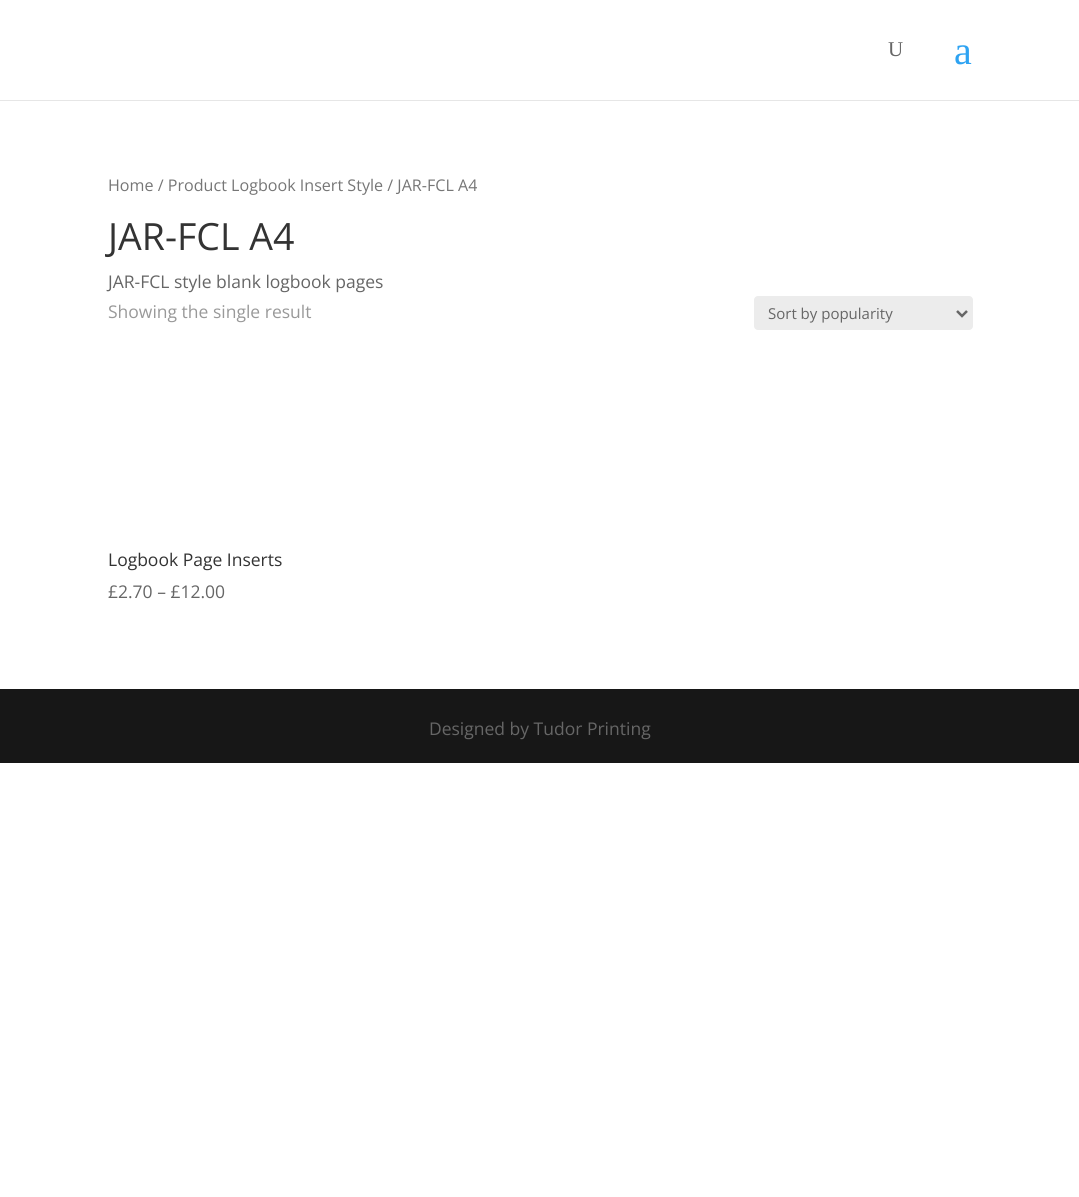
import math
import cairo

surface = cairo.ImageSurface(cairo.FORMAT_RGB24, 1079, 1197)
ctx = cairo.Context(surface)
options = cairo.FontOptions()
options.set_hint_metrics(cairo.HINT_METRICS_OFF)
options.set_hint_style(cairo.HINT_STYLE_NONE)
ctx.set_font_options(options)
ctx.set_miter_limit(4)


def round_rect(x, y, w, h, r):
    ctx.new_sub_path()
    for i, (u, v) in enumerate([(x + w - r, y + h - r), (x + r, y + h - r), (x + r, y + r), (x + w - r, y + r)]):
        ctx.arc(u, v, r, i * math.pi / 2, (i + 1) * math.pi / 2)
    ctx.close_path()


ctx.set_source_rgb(1, 1, 1)
ctx.paint()
ctx.set_source_rgb(0.902, 0.902, 0.902)
ctx.rectangle(0, 100, 1079, 1)
ctx.fill()
ctx.select_font_face("Liberation Serif")
ctx.set_font_size(21)
ctx.set_source_rgb(0.4, 0.4, 0.4)
ctx.move_to(888, 56)
ctx.show_text("U")
ctx.set_font_size(40)
ctx.set_source_rgb(0.18, 0.639, 0.949)
ctx.move_to(954, 64)
ctx.show_text("a")
ctx.select_font_face("Open Sans")
ctx.set_font_size(16.1)
ctx.set_source_rgb(0.463, 0.463, 0.463)
ctx.move_to(108, 191)
ctx.show_text("Home / Product Logbook Insert Style / JAR-FCL A4")
ctx.set_font_size(37.5)
ctx.set_source_rgb(0.2, 0.2, 0.2)
ctx.move_to(108, 250)
ctx.show_text("JAR-FCL A4")
ctx.set_font_size(17.5)
ctx.set_source_rgb(0.4, 0.4, 0.4)
ctx.move_to(108, 288)
ctx.show_text("JAR-FCL style blank logbook pages")
ctx.set_source_rgb(0.6, 0.6, 0.6)
ctx.move_to(108, 318)
ctx.show_text("Showing the single result")
ctx.set_source_rgb(0.925, 0.925, 0.925)
round_rect(754, 296, 219, 34, 4)
ctx.fill()
ctx.new_path()
ctx.move_to(957, 311)
ctx.line_to(962, 316)
ctx.line_to(967, 311)
ctx.set_source_rgb(0.4, 0.4, 0.4)
ctx.set_line_width(2.5)
ctx.stroke()
ctx.set_font_size(15)
ctx.move_to(768, 319)
ctx.show_text("Sort by popularity")
ctx.set_font_size(17.5)
ctx.set_source_rgb(0.2, 0.2, 0.2)
ctx.move_to(108, 566)
ctx.show_text("Logbook Page Inserts")
ctx.set_source_rgb(0.4, 0.4, 0.4)
ctx.move_to(108, 598)
ctx.show_text("£2.70 – £12.00")
ctx.set_source_rgb(0.09, 0.09, 0.09)
ctx.rectangle(0, 689, 1079, 74)
ctx.fill()
ctx.set_source_rgb(0.4, 0.4, 0.4)
ctx.move_to(429, 735)
ctx.show_text("Designed by Tudor Printing")
surface.write_to_png("page.png")
